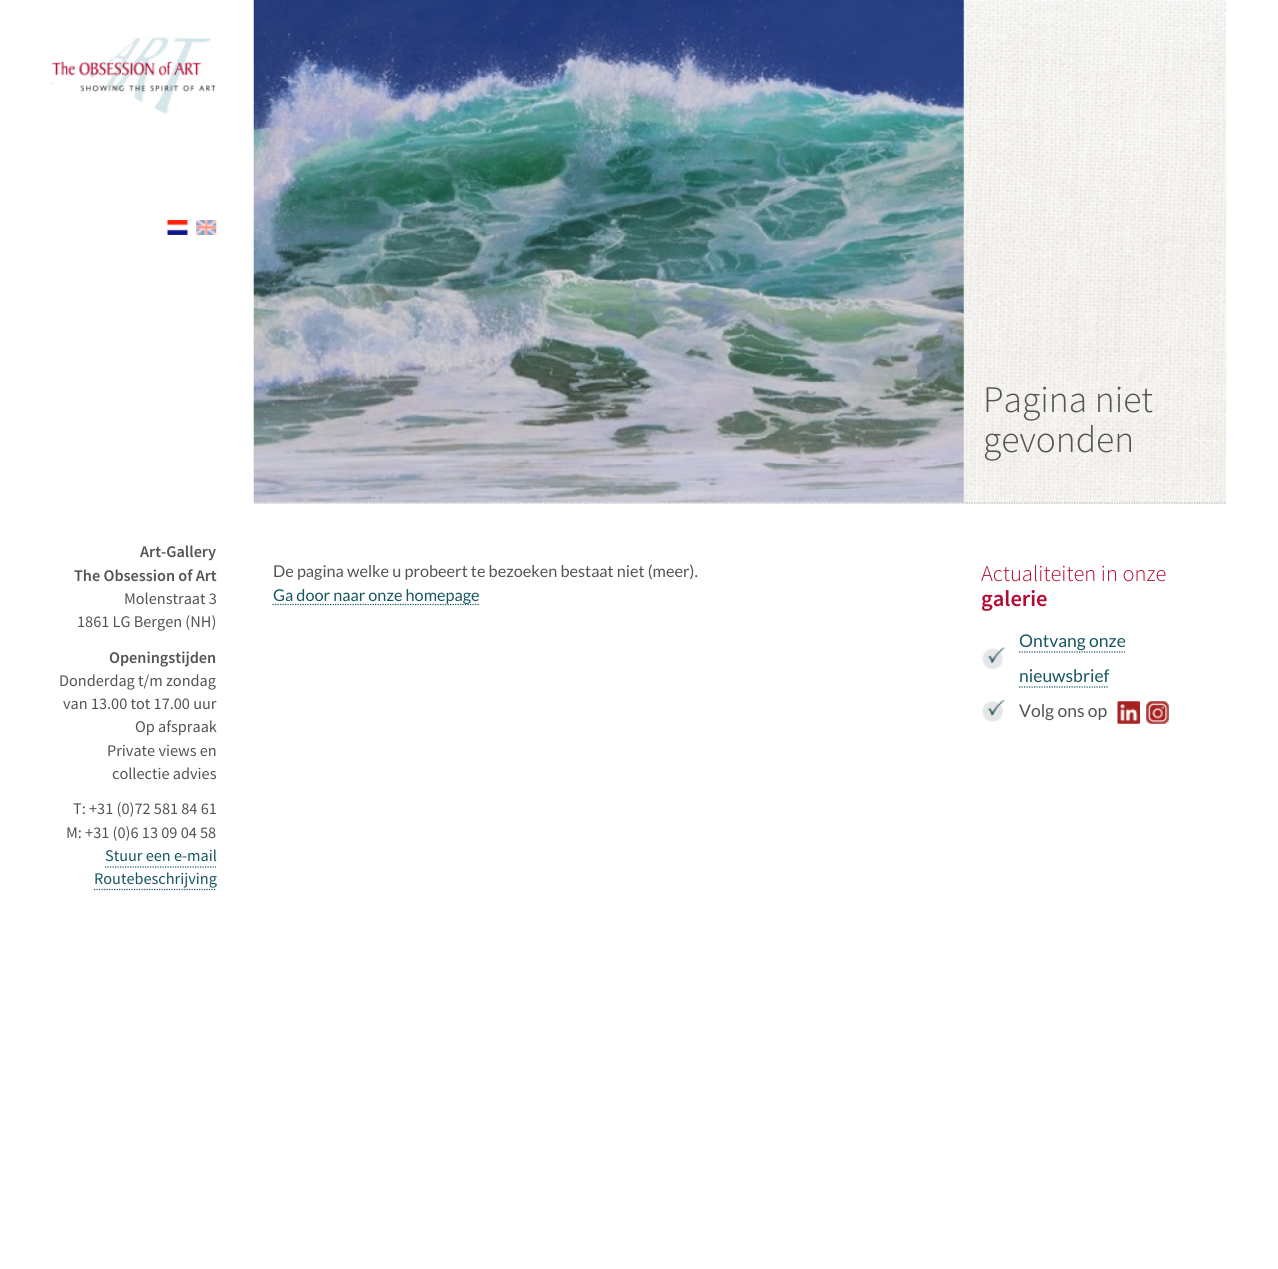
import math
import cairo

surface = cairo.ImageSurface(cairo.FORMAT_RGB24, 1278, 1269)
ctx = cairo.Context(surface)
options = cairo.FontOptions()
options.set_hint_metrics(cairo.HINT_METRICS_OFF)
options.set_hint_style(cairo.HINT_STYLE_NONE)
ctx.set_font_options(options)
ctx.set_miter_limit(4)


def picture(path, x, y, w, h):
    ctx.save()
    ctx.set_source_surface(cairo.ImageSurface.create_from_png(path), x, y)
    ctx.rectangle(x, y, w, h)
    ctx.fill()
    ctx.restore()


ctx.set_source_rgb(1, 1, 1)
ctx.paint()
ctx.new_path()
ctx.move_to(52.5, 83)
ctx.line_to(216, 83)
ctx.set_source_rgb(0.086, 0.337, 0.38)
ctx.set_line_width(1.2)
ctx.set_dash([1.25, 1.25])
ctx.stroke()
picture("img1.png", 52, 37, 164, 77)
picture("img2.png", 167, 220, 21, 15)
picture("img3.png", 196, 220, 21, 15)
picture("img4.png", 253, 0, 974, 504)
ctx.new_path()
ctx.move_to(254, 503)
ctx.line_to(1226, 503)
ctx.set_source_rgb(0.729, 0.729, 0.729)
ctx.stroke()
picture("img5.png", 253, 0, 711, 503)
ctx.select_font_face("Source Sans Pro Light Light")
ctx.set_font_size(37.5)
ctx.set_source_rgb(0.325, 0.325, 0.325)
ctx.move_to(983, 412)
ctx.show_text("Pagina niet")
ctx.move_to(983, 452)
ctx.show_text("gevonden")
ctx.select_font_face("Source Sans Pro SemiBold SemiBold")
ctx.set_font_size(16.25)
ctx.move_to(140, 557)
ctx.show_text("Art-Gallery")
ctx.move_to(74, 581)
ctx.show_text("The Obsession of Art")
ctx.select_font_face("Source Sans Pro")
ctx.move_to(124, 604)
ctx.show_text("Molenstraat 3")
ctx.move_to(77, 627)
ctx.show_text("1861 LG Bergen (NH)")
ctx.select_font_face("Source Sans Pro SemiBold SemiBold")
ctx.move_to(109, 663)
ctx.show_text("Openingstijden")
ctx.select_font_face("Source Sans Pro")
ctx.move_to(59, 686)
ctx.show_text("Donderdag t/m zondag")
ctx.move_to(63, 709)
ctx.show_text("van 13.00 tot 17.00 uur")
ctx.move_to(135, 732)
ctx.show_text("Op afspraak")
ctx.move_to(107, 756)
ctx.show_text("Private views en")
ctx.move_to(112, 779)
ctx.show_text("collectie advies")
ctx.move_to(73, 814)
ctx.show_text("T: +31 (0)72 581 84 61")
ctx.move_to(66, 838)
ctx.show_text("M: +31 (0)6 13 09 04 58")
ctx.set_source_rgb(0.086, 0.337, 0.38)
ctx.move_to(105, 861)
ctx.show_text("Stuur een e-mail")
ctx.new_path()
ctx.move_to(105, 867)
ctx.line_to(216, 867)
ctx.stroke()
ctx.move_to(94, 884)
ctx.show_text("Routebeschrijving")
ctx.new_path()
ctx.move_to(94, 889.5)
ctx.line_to(216, 889.5)
ctx.stroke()
ctx.select_font_face("Lato")
ctx.set_source_rgb(0.325, 0.325, 0.325)
ctx.move_to(273, 577)
ctx.show_text("De pagina welke u probeert te bezoeken bestaat niet (meer).")
ctx.new_path()
ctx.move_to(272.5, 604.5)
ctx.line_to(479, 604.5)
ctx.set_source_rgb(0.086, 0.337, 0.38)
ctx.stroke()
ctx.move_to(273, 601)
ctx.show_text("Ga door naar onze homepage")
ctx.select_font_face("Source Sans Pro Light Light")
ctx.set_font_size(22.5)
ctx.set_source_rgb(0.698, 0.035, 0.196)
ctx.move_to(981, 581)
ctx.show_text("Actualiteiten in onze")
ctx.select_font_face("Source Sans Pro SemiBold SemiBold")
ctx.move_to(981, 606)
ctx.show_text("galerie")
picture("img6.png", 982, 647, 24, 23)
ctx.select_font_face("Lato")
ctx.set_font_size(17.5)
ctx.set_source_rgb(0.086, 0.337, 0.38)
ctx.move_to(1019, 647)
ctx.show_text("Ontvang onze")
ctx.new_path()
ctx.move_to(1019, 652)
ctx.line_to(1125, 652)
ctx.stroke()
ctx.move_to(1019, 682)
ctx.show_text("nieuwsbrief")
ctx.new_path()
ctx.move_to(1019, 687)
ctx.line_to(1109, 687)
ctx.stroke()
picture("img7.png", 982, 699, 24, 23)
ctx.set_source_rgb(0.325, 0.325, 0.325)
ctx.move_to(1019, 717)
ctx.show_text("Volg ons op")
ctx.new_path()
ctx.move_to(1117.5, 722)
ctx.line_to(1140, 722)
ctx.set_source_rgb(0.086, 0.337, 0.38)
ctx.stroke()
picture("img8.png", 1117, 701, 23, 23)
ctx.new_path()
ctx.move_to(1146, 722)
ctx.line_to(1169, 722)
ctx.stroke()
picture("img9.png", 1146, 701, 23, 23)
surface.write_to_png("page.png")
